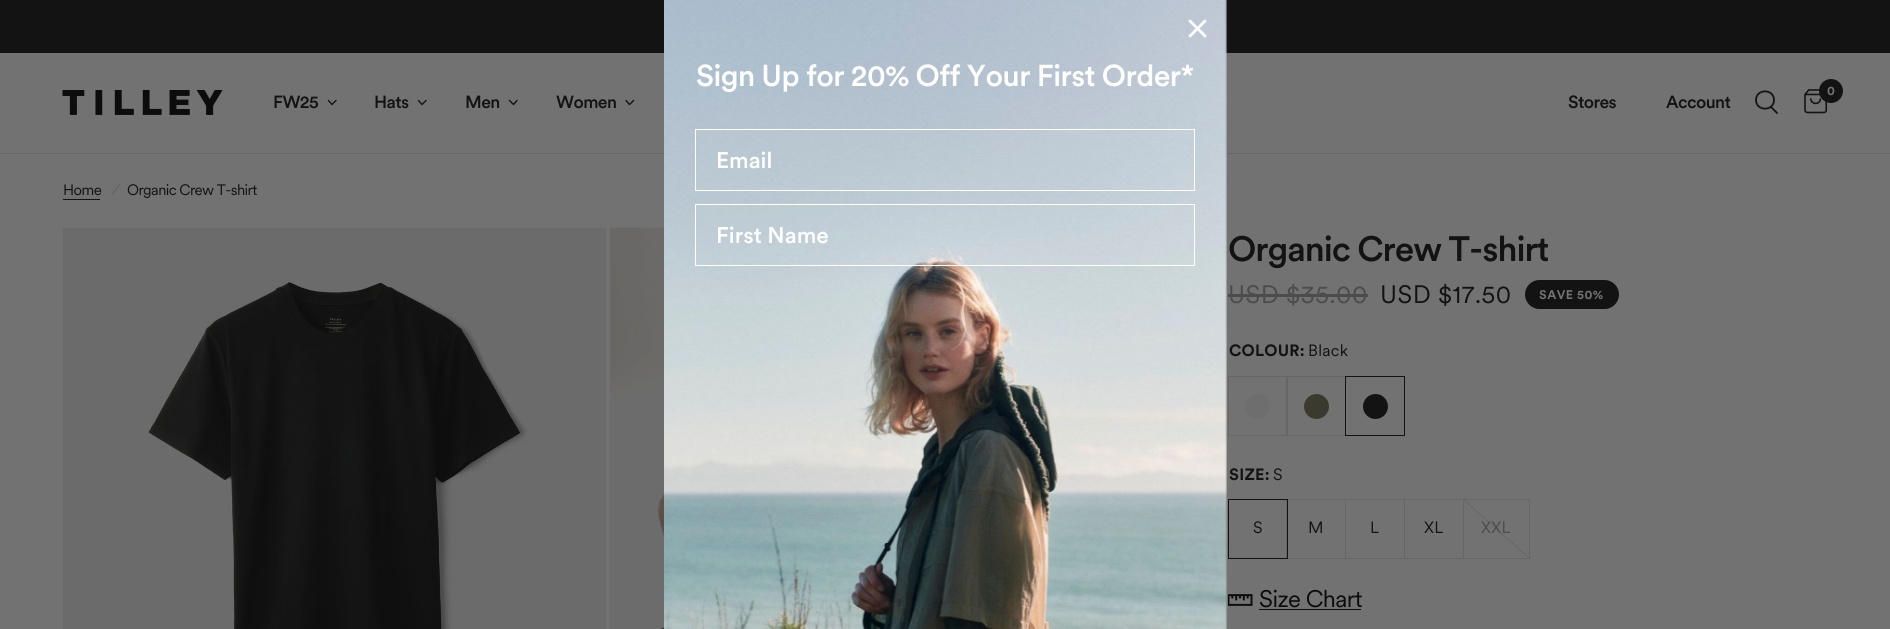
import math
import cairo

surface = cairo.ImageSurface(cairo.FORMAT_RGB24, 1890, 629)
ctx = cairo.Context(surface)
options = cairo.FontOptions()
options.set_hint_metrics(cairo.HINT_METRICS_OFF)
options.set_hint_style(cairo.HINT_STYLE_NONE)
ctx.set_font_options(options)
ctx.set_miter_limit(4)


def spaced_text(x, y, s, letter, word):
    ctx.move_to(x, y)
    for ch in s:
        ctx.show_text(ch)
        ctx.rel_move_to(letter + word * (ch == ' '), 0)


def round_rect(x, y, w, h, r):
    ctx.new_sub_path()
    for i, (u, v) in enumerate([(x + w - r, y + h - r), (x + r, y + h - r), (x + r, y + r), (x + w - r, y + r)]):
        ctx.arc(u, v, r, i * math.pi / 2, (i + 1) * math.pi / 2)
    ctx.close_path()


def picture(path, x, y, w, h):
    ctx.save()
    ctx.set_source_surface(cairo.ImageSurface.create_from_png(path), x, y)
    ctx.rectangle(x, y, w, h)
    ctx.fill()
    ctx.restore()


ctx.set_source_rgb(0.447, 0.447, 0.447)
ctx.paint()
ctx.set_source_rgb(0.078, 0.078, 0.078)
ctx.rectangle(0, 0, 1890, 53)
ctx.fill()
ctx.set_source_rgb(0.4, 0.4, 0.4)
ctx.rectangle(0, 153, 1890, 1)
ctx.fill()
picture("img1.png", 664, 0, 563, 629)
ctx.new_path()
ctx.move_to(1190, 21)
ctx.line_to(1205, 36)
ctx.move_to(1190, 36)
ctx.line_to(1205, 21)
ctx.close_path()
ctx.set_source_rgb(1, 1, 1)
ctx.set_line_width(2.8)
ctx.set_line_cap(cairo.LINE_CAP_ROUND)
ctx.set_line_join(cairo.LINE_JOIN_ROUND)
ctx.stroke()
ctx.select_font_face("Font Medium")
ctx.set_font_size(30)
spaced_text(696, 86, "Sign Up for 20% Off Your First Order*", -0.55, 0)
ctx.set_source_rgba(1, 1, 1, 0.05)
ctx.rectangle(695.5, 129.5, 499, 61)
ctx.fill_preserve()
ctx.set_source_rgb(1, 1, 1)
ctx.set_line_width(1)
ctx.set_line_cap(cairo.LINE_CAP_BUTT)
ctx.set_line_join(cairo.LINE_JOIN_MITER)
ctx.stroke()
ctx.set_font_size(22.5)
ctx.move_to(716, 168)
ctx.show_text("Email")
ctx.set_source_rgba(1, 1, 1, 0.05)
ctx.rectangle(695.5, 204.5, 499, 61)
ctx.fill_preserve()
ctx.set_source_rgb(1, 1, 1)
ctx.stroke()
ctx.move_to(716, 243)
ctx.show_text("First Name")
picture("img2.png", 62, 90, 161, 25)
ctx.set_font_size(17.5)
ctx.set_source_rgb(0.078, 0.078, 0.078)
spaced_text(273, 108, "FW25", -0.6, 0)
ctx.new_path()
ctx.move_to(336, 100.5)
ctx.line_to(332, 104.5)
ctx.line_to(328.5, 100.5)
ctx.set_line_width(1.4)
ctx.set_line_cap(cairo.LINE_CAP_ROUND)
ctx.set_line_join(cairo.LINE_JOIN_ROUND)
ctx.stroke()
spaced_text(374, 108, "Hats", -0.6, 0)
ctx.new_path()
ctx.move_to(426, 100.5)
ctx.line_to(422, 104.5)
ctx.line_to(418.5, 100.5)
ctx.stroke()
spaced_text(465, 108, "Men", -0.6, 0)
ctx.new_path()
ctx.move_to(517, 100.5)
ctx.line_to(513.5, 104.5)
ctx.line_to(509.5, 100.5)
ctx.stroke()
spaced_text(556, 108, "Women", -0.6, 0)
ctx.new_path()
ctx.move_to(633.5, 100.5)
ctx.line_to(629.5, 104.5)
ctx.line_to(626, 100.5)
ctx.stroke()
spaced_text(1568, 108, "Stores", -0.6, 0)
spaced_text(1666, 108, "Account", -0.6, 0)
ctx.new_path()
ctx.move_to(1771, 107)
ctx.line_to(1777, 113)
ctx.move_to(1774, 100)
ctx.curve_to(1774, 111.5, 1756, 111.5, 1756, 100)
ctx.curve_to(1756, 88.5, 1774, 88.5, 1774, 100)
ctx.close_path()
ctx.set_line_width(1.8)
ctx.stroke()
picture("img3.png", 1804, 89, 24, 25)
ctx.arc(1831, 91, 12, 0, 2 * math.pi)
ctx.fill()
ctx.select_font_face("Font", cairo.FONT_SLANT_NORMAL, cairo.FONT_WEIGHT_BOLD)
ctx.set_font_size(12.5)
ctx.set_source_rgb(0.447, 0.447, 0.447)
spaced_text(1827, 95, "0", -0.6, 0)
ctx.select_font_face("Font")
ctx.set_font_size(15)
ctx.set_source_rgb(0.078, 0.078, 0.078)
spaced_text(63, 195, "Home", -0.6, 0)
ctx.rectangle(63, 199, 37, 1)
ctx.fill()
ctx.select_font_face("Font", cairo.FONT_SLANT_ITALIC)
ctx.set_source_rgb(0.373, 0.373, 0.373)
spaced_text(111, 195, "/", -0.6, 0)
ctx.select_font_face("Font")
ctx.set_source_rgb(0.078, 0.078, 0.078)
spaced_text(127, 195, "Organic Crew T-shirt", -0.6, 0)
picture("img4.png", 62, 227, 544, 402)
picture("img5.png", 610, 227, 54, 402)
ctx.select_font_face("Font Medium")
ctx.set_font_size(35)
spaced_text(1228, 261, "Organic Crew T-shirt", -1.05, 0)
ctx.select_font_face("Font")
ctx.set_font_size(25)
ctx.set_source_rgb(0.298, 0.298, 0.298)
spaced_text(1228, 303, "USD $35.00", 0.5, 0)
ctx.rectangle(1228, 294, 140, 3)
ctx.fill()
ctx.set_source_rgb(0.078, 0.078, 0.078)
spaced_text(1380, 303, "USD $17.50", 0.5, 0)
round_rect(1525, 280, 94, 29, 14.5)
ctx.fill()
ctx.select_font_face("Font", cairo.FONT_SLANT_NORMAL, cairo.FONT_WEIGHT_BOLD)
ctx.set_font_size(12.5)
ctx.set_source_rgb(0.447, 0.447, 0.447)
spaced_text(1539, 299, "SAVE 50%", 0.5, 0)
ctx.set_font_size(16.25)
ctx.set_source_rgb(0.078, 0.078, 0.078)
spaced_text(1229, 356, "COLOUR:", 0.25, 0)
ctx.select_font_face("Font")
spaced_text(1308, 356, "Black", 0.25, 0)
ctx.rectangle(1228.5, 376.5, 59, 59)
ctx.set_source_rgb(0.4, 0.4, 0.4)
ctx.set_line_width(1)
ctx.set_line_cap(cairo.LINE_CAP_BUTT)
ctx.set_line_join(cairo.LINE_JOIN_MITER)
ctx.stroke()
ctx.set_source_rgb(0.431, 0.431, 0.431)
ctx.arc(1257.5, 406.5, 12.5, 0, 2 * math.pi)
ctx.fill()
ctx.rectangle(1286.5, 376.5, 59, 59)
ctx.set_source_rgb(0.4, 0.4, 0.4)
ctx.stroke()
ctx.set_source_rgb(0.227, 0.227, 0.184)
ctx.arc(1316.5, 406.5, 12.5, 0, 2 * math.pi)
ctx.fill()
ctx.rectangle(1345.5, 376.5, 59, 59)
ctx.set_source_rgb(0.078, 0.078, 0.078)
ctx.stroke()
ctx.arc(1375.5, 406.5, 12.5, 0, 2 * math.pi)
ctx.fill()
ctx.select_font_face("Font", cairo.FONT_SLANT_NORMAL, cairo.FONT_WEIGHT_BOLD)
spaced_text(1229, 480, "SIZE:", 0.25, 0)
ctx.select_font_face("Font")
spaced_text(1273, 480, "S", 0.25, 0)
ctx.rectangle(1286.5, 499.5, 59, 59)
ctx.set_source_rgb(0.4, 0.4, 0.4)
ctx.stroke()
ctx.rectangle(1228.5, 499.5, 59, 59)
ctx.set_source_rgb(0.078, 0.078, 0.078)
ctx.stroke()
spaced_text(1253, 533, "S", 0.25, 0)
spaced_text(1308, 533, "M", 0.25, 0)
ctx.rectangle(1345.5, 499.5, 59, 59)
ctx.set_source_rgb(0.4, 0.4, 0.4)
ctx.stroke()
ctx.set_source_rgb(0.078, 0.078, 0.078)
spaced_text(1370, 533, "L", 0.25, 0)
ctx.rectangle(1404.5, 499.5, 59, 59)
ctx.set_source_rgb(0.4, 0.4, 0.4)
ctx.stroke()
ctx.set_source_rgb(0.078, 0.078, 0.078)
spaced_text(1424, 533, "XL", 0.25, 0)
ctx.rectangle(1463.5, 499.5, 66, 59)
ctx.set_source_rgb(0.4, 0.4, 0.4)
ctx.stroke()
gradient = cairo.LinearGradient(1526, 495, 1466, 562)
gradient.add_color_stop_rgba(0.49, 0.4, 0.4, 0.4, 0)
gradient.add_color_stop_rgba(0.5, 0.4, 0.4, 0.4, 1)
gradient.add_color_stop_rgba(0.51, 0.4, 0.4, 0.4, 0)
ctx.set_source(gradient)
ctx.rectangle(1464, 500, 65, 58)
ctx.fill()
ctx.set_source_rgb(0.298, 0.298, 0.298)
spaced_text(1481, 533, "XXL", 0.25, 0)
picture("img6.png", 1228, 594, 25, 12)
ctx.set_font_size(23.75)
ctx.set_source_rgb(0.047, 0.047, 0.047)
spaced_text(1259, 607, "Size Chart", -0.6, 0)
ctx.rectangle(1259, 609, 102, 1)
ctx.fill()
surface.write_to_png("page.png")
